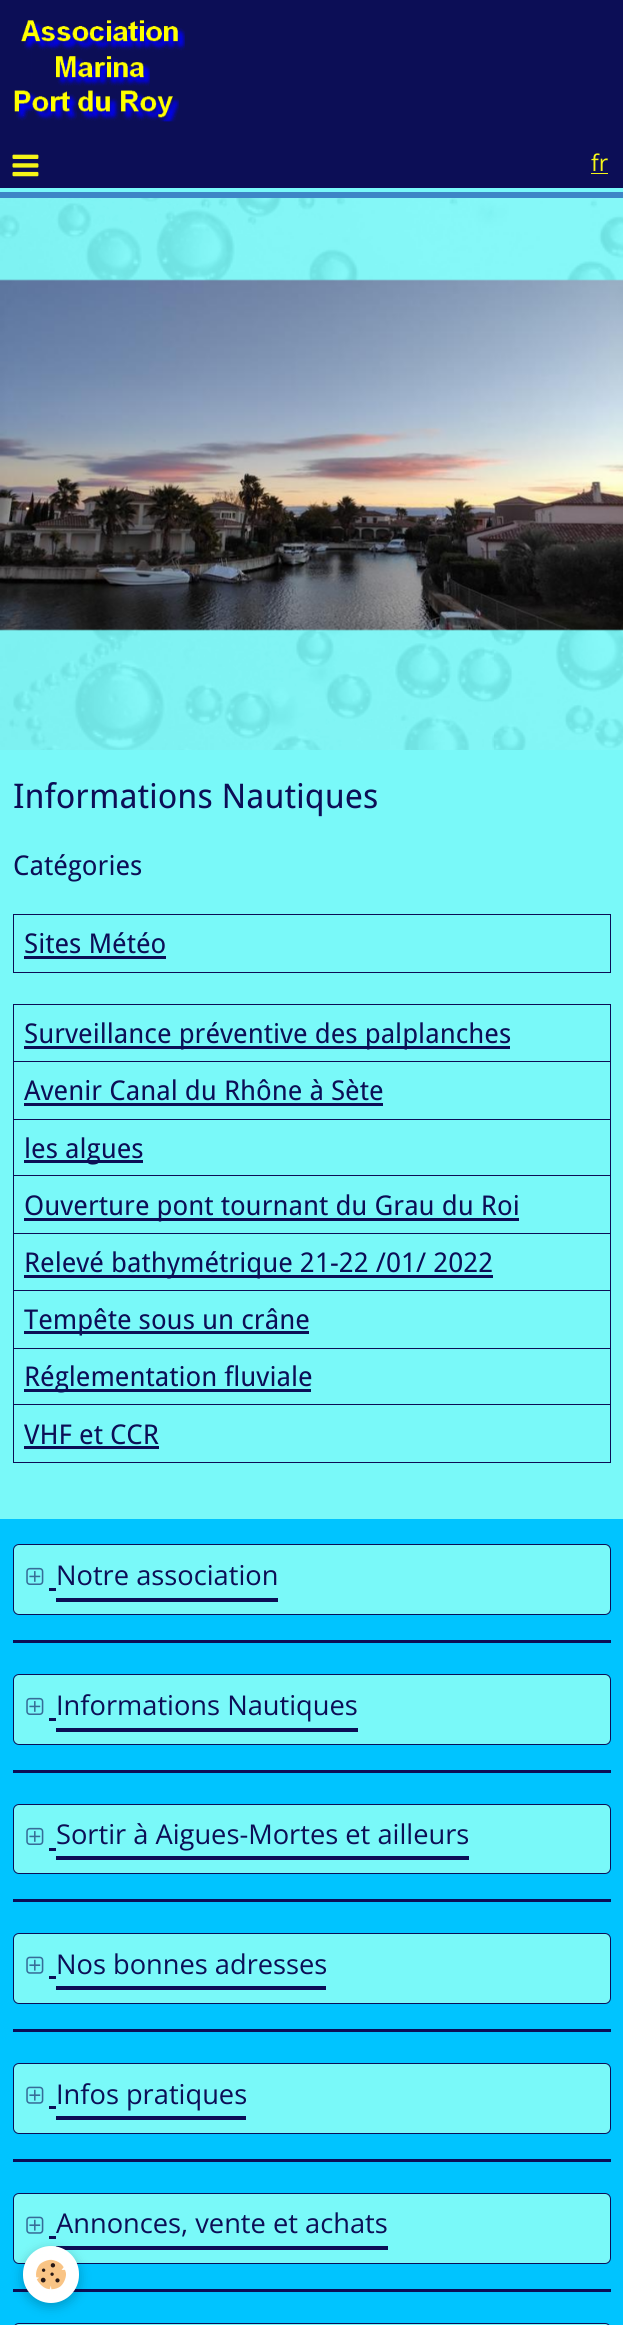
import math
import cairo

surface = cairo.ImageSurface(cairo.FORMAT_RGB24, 623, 2325)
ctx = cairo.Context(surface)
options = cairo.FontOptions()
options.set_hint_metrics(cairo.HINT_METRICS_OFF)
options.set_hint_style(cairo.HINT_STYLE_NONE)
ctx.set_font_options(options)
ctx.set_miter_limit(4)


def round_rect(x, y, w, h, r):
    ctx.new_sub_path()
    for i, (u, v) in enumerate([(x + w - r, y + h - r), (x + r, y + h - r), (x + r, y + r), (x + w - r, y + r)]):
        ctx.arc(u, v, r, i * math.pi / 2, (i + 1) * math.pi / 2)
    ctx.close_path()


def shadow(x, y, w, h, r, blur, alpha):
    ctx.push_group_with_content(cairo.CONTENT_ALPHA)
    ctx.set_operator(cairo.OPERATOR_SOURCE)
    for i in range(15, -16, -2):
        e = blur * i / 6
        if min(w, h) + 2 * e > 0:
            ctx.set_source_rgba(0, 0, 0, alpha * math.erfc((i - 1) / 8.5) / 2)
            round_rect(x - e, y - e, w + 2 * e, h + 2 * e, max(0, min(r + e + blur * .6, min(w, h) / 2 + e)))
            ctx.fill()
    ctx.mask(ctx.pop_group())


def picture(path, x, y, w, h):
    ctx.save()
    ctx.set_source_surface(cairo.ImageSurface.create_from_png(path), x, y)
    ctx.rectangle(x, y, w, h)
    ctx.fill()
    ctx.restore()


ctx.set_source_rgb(0.475, 0.973, 0.973)
ctx.paint()
picture("img1.png", 0, 198, 623, 552)
ctx.set_source_rgb(0.239, 0.522, 0.776)
ctx.new_path()
ctx.move_to(0, 191)
ctx.line_to(0, 198)
ctx.line_to(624, 198)
ctx.line_to(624, 6)
ctx.line_to(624, 191)
ctx.close_path()
ctx.fill()
ctx.set_source_rgb(0.047, 0.055, 0.337)
ctx.rectangle(0, 0, 623, 188)
ctx.fill()
ctx.set_source_rgb(0.475, 0.973, 0.973)
ctx.rectangle(0, 191, 623, 1)
ctx.fill()
picture("img2.png", 14, 20, 171, 102)
picture("img3.png", 12, 154, 27, 23)
ctx.select_font_face("Open Sans")
ctx.set_font_size(23)
ctx.set_source_rgb(0.961, 0.961, 0.094)
ctx.move_to(591, 171)
ctx.show_text("fr")
ctx.rectangle(591, 173, 17, 1)
ctx.fill()
picture("img4.png", 0, 279, 623, 352)
ctx.select_font_face("Droid Sans")
ctx.set_font_size(34)
ctx.set_source_rgb(0.047, 0.055, 0.337)
ctx.move_to(13, 808)
ctx.show_text("Informations Nautiques")
ctx.set_font_size(27.25)
ctx.move_to(13, 875)
ctx.show_text("Catégories")
ctx.rectangle(13.5, 914.5, 597, 58)
ctx.set_line_width(1)
ctx.stroke()
ctx.move_to(24, 953)
ctx.show_text("Sites Météo")
ctx.rectangle(24, 956, 142, 3)
ctx.fill()
ctx.rectangle(13.5, 1004.5, 597, 458)
ctx.stroke()
ctx.rectangle(14, 1061, 596, 1)
ctx.fill()
ctx.rectangle(24, 1046, 486, 3)
ctx.fill()
ctx.move_to(24, 1043)
ctx.show_text("Surveillance préventive des palplanches")
ctx.rectangle(14, 1119, 596, 1)
ctx.fill()
ctx.move_to(24, 1100)
ctx.show_text("Avenir Canal du Rhône à Sète")
ctx.rectangle(24, 1103, 359, 3)
ctx.fill()
ctx.rectangle(14, 1175, 596, 1)
ctx.fill()
ctx.rectangle(24, 1160, 119, 3)
ctx.fill()
ctx.move_to(24, 1158)
ctx.show_text("les algues")
ctx.rectangle(14, 1233, 596, 1)
ctx.fill()
ctx.rectangle(24, 1218, 495, 3)
ctx.fill()
ctx.move_to(24, 1215)
ctx.show_text("Ouverture pont tournant du Grau du Roi")
ctx.rectangle(14, 1290, 596, 1)
ctx.fill()
ctx.rectangle(24, 1275, 469, 3)
ctx.fill()
ctx.move_to(24, 1272)
ctx.show_text("Relevé bathymétrique 21-22 /01/ 2022")
ctx.rectangle(14, 1348, 596, 1)
ctx.fill()
ctx.rectangle(24, 1331, 285, 3)
ctx.fill()
ctx.move_to(24, 1329)
ctx.show_text("Tempête sous un crâne")
ctx.rectangle(14, 1404, 596, 1)
ctx.fill()
ctx.rectangle(24, 1389, 287, 3)
ctx.fill()
ctx.move_to(24, 1386)
ctx.show_text("Réglementation fluviale")
ctx.move_to(24, 1444)
ctx.show_text("VHF et CCR")
ctx.rectangle(24, 1446, 135, 3)
ctx.fill()
ctx.set_source_rgb(0, 0.769, 1)
ctx.rectangle(0, 1519, 623, 806)
ctx.fill()
ctx.set_source_rgb(0.475, 0.973, 0.973)
round_rect(13.5, 1544.5, 597, 70, 5.5)
ctx.fill_preserve()
ctx.set_source_rgb(0.047, 0.055, 0.337)
ctx.stroke()
picture("img5.png", 26, 1567, 18, 18)
ctx.rectangle(56, 1598, 222, 4)
ctx.fill()
ctx.select_font_face("Open Sans")
ctx.move_to(56, 1585)
ctx.show_text("Notre association")
ctx.rectangle(49, 1588, 7, 3)
ctx.fill()
ctx.rectangle(13, 1640, 598, 3)
ctx.fill()
ctx.set_source_rgb(0.475, 0.973, 0.973)
round_rect(13.5, 1674.5, 597, 70, 5.5)
ctx.fill_preserve()
ctx.set_source_rgb(0.047, 0.055, 0.337)
ctx.stroke()
picture("img5.png", 26, 1697, 18, 18)
ctx.rectangle(56, 1728, 302, 4)
ctx.fill()
ctx.move_to(56, 1715)
ctx.show_text("Informations Nautiques")
ctx.rectangle(49, 1718, 7, 3)
ctx.fill()
ctx.rectangle(13, 1770, 598, 3)
ctx.fill()
ctx.set_source_rgb(0.475, 0.973, 0.973)
round_rect(13.5, 1804.5, 597, 69, 5.5)
ctx.fill_preserve()
ctx.set_source_rgb(0.047, 0.055, 0.337)
ctx.stroke()
picture("img5.png", 26, 1827, 18, 18)
ctx.rectangle(56, 1856, 413, 4)
ctx.fill()
ctx.move_to(56, 1844)
ctx.show_text("Sortir à Aigues-Mortes et ailleurs")
ctx.rectangle(49, 1848, 7, 3)
ctx.fill()
ctx.rectangle(13, 1899, 598, 3)
ctx.fill()
ctx.set_source_rgb(0.475, 0.973, 0.973)
round_rect(13.5, 1933.5, 597, 70, 5.5)
ctx.fill_preserve()
ctx.set_source_rgb(0.047, 0.055, 0.337)
ctx.stroke()
picture("img6.png", 26, 1956, 18, 18)
ctx.rectangle(56, 1986, 270, 4)
ctx.fill()
ctx.move_to(56, 1974)
ctx.show_text("Nos bonnes adresses")
ctx.rectangle(49, 1976, 7, 3)
ctx.fill()
ctx.rectangle(13, 2029, 598, 3)
ctx.fill()
ctx.set_source_rgb(0.475, 0.973, 0.973)
round_rect(13.5, 2063.5, 597, 70, 5.5)
ctx.fill_preserve()
ctx.set_source_rgb(0.047, 0.055, 0.337)
ctx.stroke()
picture("img6.png", 26, 2086, 18, 18)
ctx.rectangle(56, 2116, 190, 4)
ctx.fill()
ctx.move_to(56, 2104)
ctx.show_text("Infos pratiques")
ctx.rectangle(49, 2106, 7, 3)
ctx.fill()
ctx.rectangle(13, 2159, 598, 3)
ctx.fill()
ctx.set_source_rgb(0.475, 0.973, 0.973)
round_rect(13.5, 2193.5, 597, 70, 5.5)
ctx.fill_preserve()
ctx.set_source_rgb(0.047, 0.055, 0.337)
ctx.stroke()
picture("img6.png", 26, 2216, 18, 18)
ctx.rectangle(56, 2246, 332, 4)
ctx.fill()
ctx.rectangle(49, 2236, 7, 3)
ctx.fill()
ctx.move_to(56, 2233)
ctx.show_text("Annonces, vente et achats")
ctx.rectangle(13, 2289, 598, 3)
ctx.fill()
ctx.set_source_rgb(0.475, 0.973, 0.973)
round_rect(13.5, 2323.5, 597, 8, 5.5)
ctx.fill_preserve()
ctx.set_source_rgb(0.047, 0.055, 0.337)
ctx.stroke()
ctx.set_source_rgb(0, 0, 0)
shadow(23, 2250, 56, 56, 28, 6, 0.24)
ctx.set_source_rgb(1, 1, 1)
round_rect(23, 2246, 56, 57, 28)
ctx.fill()
picture("img7.png", 36, 2259, 30, 31)
surface.write_to_png("page.png")
